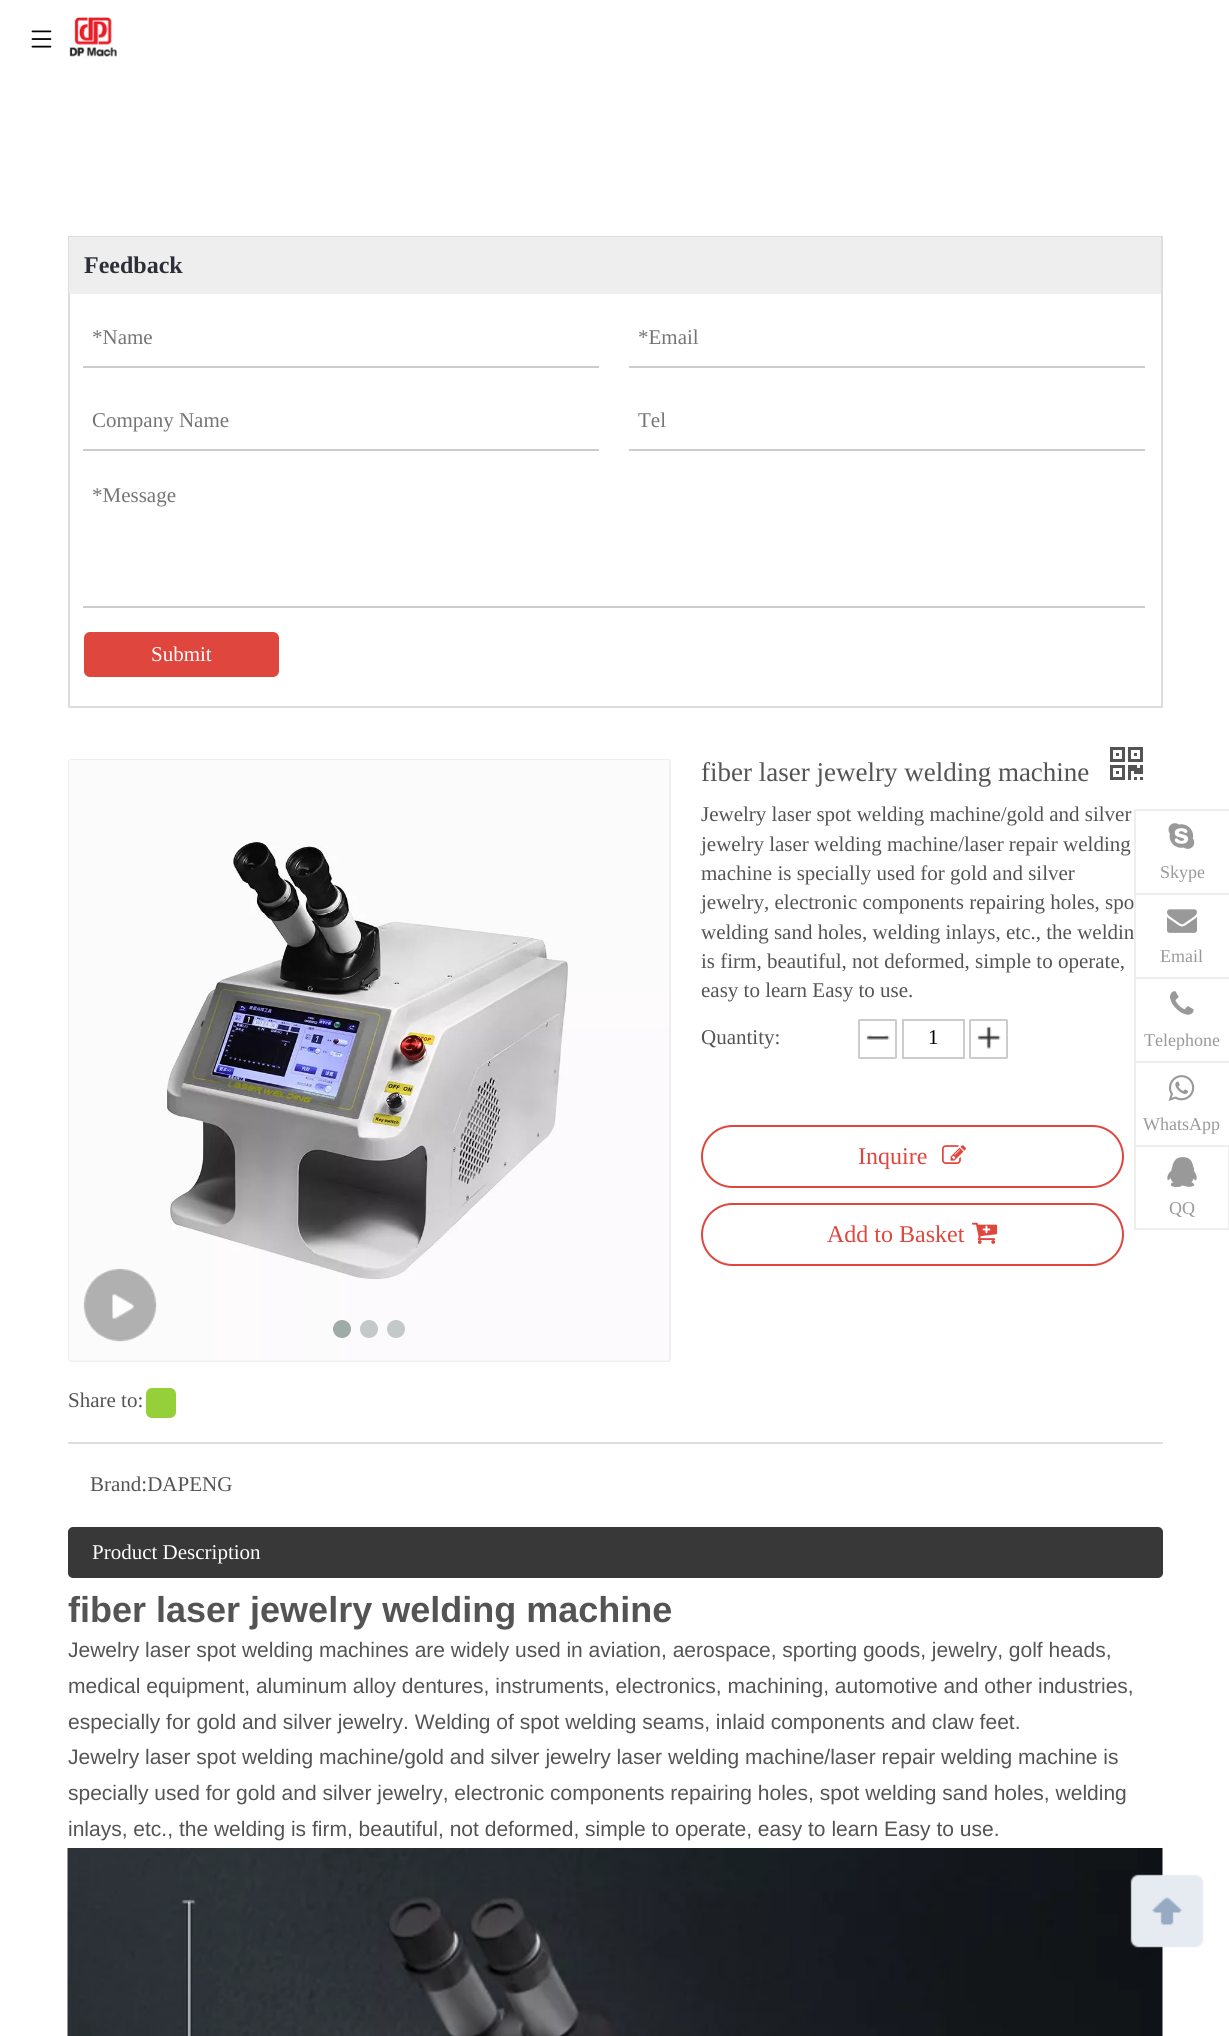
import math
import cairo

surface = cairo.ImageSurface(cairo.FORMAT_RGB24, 1229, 2036)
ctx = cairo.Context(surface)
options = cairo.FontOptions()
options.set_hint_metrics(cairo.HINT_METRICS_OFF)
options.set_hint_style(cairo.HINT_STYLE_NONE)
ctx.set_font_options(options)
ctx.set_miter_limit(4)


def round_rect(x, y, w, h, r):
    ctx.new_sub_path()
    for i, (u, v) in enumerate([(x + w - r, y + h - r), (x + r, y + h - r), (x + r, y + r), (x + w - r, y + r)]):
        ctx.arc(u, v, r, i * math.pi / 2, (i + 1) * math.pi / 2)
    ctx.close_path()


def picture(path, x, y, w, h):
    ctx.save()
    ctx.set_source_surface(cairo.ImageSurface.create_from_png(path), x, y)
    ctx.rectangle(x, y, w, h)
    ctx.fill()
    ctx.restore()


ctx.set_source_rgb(1, 1, 1)
ctx.paint()
picture("img1.png", 31, 30, 21, 18)
picture("img2.png", 69, 17, 48, 40)
ctx.rectangle(69, 237, 1093, 470)
ctx.set_source_rgb(0.867, 0.867, 0.867)
ctx.stroke()
ctx.set_source_rgb(0.933, 0.933, 0.933)
ctx.rectangle(69, 237, 1092, 57)
ctx.fill()
ctx.select_font_face("Liberation Serif", cairo.FONT_SLANT_NORMAL, cairo.FONT_WEIGHT_BOLD)
ctx.set_font_size(24)
ctx.set_source_rgb(0.173, 0.184, 0.216)
ctx.move_to(84, 273)
ctx.show_text("Feedback")
ctx.set_source_rgb(0.8, 0.8, 0.8)
ctx.rectangle(83, 366, 516, 2)
ctx.fill()
ctx.select_font_face("Liberation Serif")
ctx.set_font_size(21)
ctx.set_source_rgb(0.459, 0.459, 0.459)
ctx.move_to(92, 344)
ctx.show_text("*Name")
ctx.set_source_rgb(0.8, 0.8, 0.8)
ctx.rectangle(629, 366, 516, 2)
ctx.fill()
ctx.set_source_rgb(0.459, 0.459, 0.459)
ctx.move_to(638, 344)
ctx.show_text("*Email")
ctx.set_source_rgb(0.8, 0.8, 0.8)
ctx.rectangle(83, 449, 516, 2)
ctx.fill()
ctx.set_source_rgb(0.459, 0.459, 0.459)
ctx.move_to(92, 427)
ctx.show_text("Company Name")
ctx.set_source_rgb(0.8, 0.8, 0.8)
ctx.rectangle(629, 449, 516, 2)
ctx.fill()
ctx.set_source_rgb(0.459, 0.459, 0.459)
ctx.move_to(638, 427)
ctx.show_text("Tel")
ctx.set_source_rgb(0.8, 0.8, 0.8)
ctx.rectangle(83, 606, 1062, 2)
ctx.fill()
ctx.set_source_rgb(0.459, 0.459, 0.459)
ctx.move_to(92, 502)
ctx.show_text("*Message")
ctx.set_source_rgb(0.875, 0.275, 0.243)
round_rect(85, 633, 193, 43, 5)
ctx.fill_preserve()
ctx.stroke()
ctx.set_source_rgb(1, 1, 1)
ctx.move_to(151, 661)
ctx.show_text("Submit")
ctx.set_font_size(27)
ctx.set_source_rgb(0.329, 0.329, 0.329)
ctx.move_to(701, 781)
ctx.show_text("fiber laser jewelry welding machine")
picture("img3.png", 1110, 747, 33, 33)
ctx.set_font_size(21)
ctx.move_to(701, 821)
ctx.show_text("Jewelry laser spot welding machine/gold and silver")
ctx.move_to(701, 851)
ctx.show_text("jewelry laser welding machine/laser repair welding")
ctx.move_to(701, 880)
ctx.show_text("machine is specially used for gold and silver")
ctx.move_to(701, 909)
ctx.show_text("jewelry, electronic components repairing holes, spo")
ctx.move_to(701, 939)
ctx.show_text("welding sand holes, welding inlays, etc., the weldin")
ctx.move_to(701, 968)
ctx.show_text("is firm, beautiful, not deformed, simple to operate,")
ctx.move_to(701, 997)
ctx.show_text("easy to learn Easy to use.")
ctx.move_to(701, 1044)
ctx.show_text("Quantity:")
picture("img4.png", 866, 1035, 24, 5)
round_rect(859, 1020, 37, 38, 0.5)
ctx.set_source_rgb(0.8, 0.8, 0.8)
ctx.stroke()
ctx.rectangle(903, 1020, 61, 38)
ctx.stroke()
ctx.set_source_rgb(0, 0, 0)
ctx.move_to(928, 1044)
ctx.show_text("1")
picture("img5.png", 977, 1026, 24, 23)
round_rect(970, 1020, 37, 38, 0.5)
ctx.set_source_rgb(0.8, 0.8, 0.8)
ctx.stroke()
round_rect(702, 1126, 421, 61, 30.5)
ctx.set_source_rgb(0.875, 0.275, 0.243)
ctx.stroke()
ctx.set_font_size(24)
ctx.move_to(858, 1164)
ctx.show_text("Inquire")
picture("img6.png", 942, 1145, 24, 19)
round_rect(702, 1204, 421, 61, 30.5)
ctx.stroke()
ctx.move_to(827, 1242)
ctx.show_text("Add to Basket")
picture("img7.png", 972, 1222, 26, 22)
round_rect(69, 760, 601, 601, 2)
ctx.set_source_rgb(0.937, 0.937, 0.937)
ctx.stroke()
picture("img8.png", 69, 760, 600, 601)
ctx.set_source_rgb(0.62, 0.671, 0.651)
ctx.arc(342, 1329, 9, 0, 2 * math.pi)
ctx.fill()
ctx.set_source_rgb(0.761, 0.788, 0.784)
ctx.arc(369, 1329, 9, 0, 2 * math.pi)
ctx.fill()
ctx.arc(396, 1329, 9, 0, 2 * math.pi)
ctx.fill()
picture("img9.png", 83, 1268, 74, 74)
ctx.set_font_size(21)
ctx.set_source_rgb(0.329, 0.329, 0.329)
ctx.move_to(68, 1407)
ctx.show_text("Share to:")
ctx.set_source_rgb(0.584, 0.816, 0.227)
round_rect(146, 1388, 30, 30, 6)
ctx.fill()
ctx.set_source_rgb(0.875, 0.875, 0.875)
ctx.rectangle(68, 1442, 1095, 2)
ctx.fill()
ctx.set_source_rgb(0.329, 0.329, 0.329)
ctx.move_to(90, 1491)
ctx.show_text("Brand:DAPENG")
ctx.set_source_rgb(0.22, 0.22, 0.22)
round_rect(69, 1528, 1093, 49, 4)
ctx.fill_preserve()
ctx.stroke()
ctx.set_source_rgb(1, 1, 1)
ctx.move_to(92, 1559)
ctx.show_text("Product Description")
ctx.select_font_face("Liberation Sans", cairo.FONT_SLANT_NORMAL, cairo.FONT_WEIGHT_BOLD)
ctx.set_font_size(36)
ctx.set_source_rgb(0.329, 0.329, 0.329)
ctx.move_to(68, 1622)
ctx.show_text("fiber laser jewelry welding machine")
ctx.select_font_face("Liberation Sans")
ctx.set_font_size(21)
ctx.move_to(68, 1657)
ctx.show_text("Jewelry laser spot welding machines are widely used in aviation, aerospace, sporting goods, jewelry, golf heads,")
ctx.move_to(68, 1693)
ctx.show_text("medical equipment, aluminum alloy dentures, instruments, electronics, machining, automotive and other industries,")
ctx.move_to(68, 1729)
ctx.show_text("especially for gold and silver jewelry. Welding of spot welding seams, inlaid components and claw feet.")
ctx.move_to(68, 1764)
ctx.show_text("Jewelry laser spot welding machine/gold and silver jewelry laser welding machine/laser repair welding machine is")
ctx.move_to(68, 1800)
ctx.show_text("specially used for gold and silver jewelry, electronic components repairing holes, spot welding sand holes, welding")
ctx.move_to(68, 1836)
ctx.show_text("inlays, etc., the welding is firm, beautiful, not deformed, simple to operate, easy to learn Easy to use.")
picture("img10.png", 67, 1848, 1096, 188)
ctx.set_source_rgb(0.933, 0.933, 0.933)
ctx.rectangle(1134, 809, 95, 2)
ctx.fill()
ctx.rectangle(1134, 809, 2, 84)
ctx.fill()
picture("img11.png", 1168, 823, 27, 26)
ctx.select_font_face("Liberation Serif")
ctx.set_font_size(18)
ctx.set_source_rgb(0.6, 0.6, 0.6)
ctx.move_to(1160, 878)
ctx.show_text("Skype")
ctx.set_source_rgb(0.933, 0.933, 0.933)
ctx.rectangle(1134, 893, 95, 2)
ctx.fill()
ctx.rectangle(1134, 893, 2, 84)
ctx.fill()
picture("img12.png", 1167, 909, 30, 24)
ctx.set_source_rgb(0.6, 0.6, 0.6)
ctx.move_to(1160, 962)
ctx.show_text("Email")
ctx.set_source_rgb(0.933, 0.933, 0.933)
ctx.rectangle(1134, 977, 95, 2)
ctx.fill()
ctx.rectangle(1134, 977, 2, 84)
ctx.fill()
picture("img13.png", 1170, 991, 24, 24)
ctx.set_source_rgb(0.6, 0.6, 0.6)
ctx.move_to(1144, 1046)
ctx.show_text("Telephone")
ctx.set_source_rgb(0.933, 0.933, 0.933)
ctx.rectangle(1134, 1061, 95, 2)
ctx.fill()
ctx.rectangle(1134, 1061, 2, 84)
ctx.fill()
picture("img14.png", 1168, 1075, 27, 26)
ctx.set_source_rgb(0.6, 0.6, 0.6)
ctx.move_to(1143, 1130)
ctx.show_text("WhatsApp")
ctx.rectangle(1135, 1146, 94, 83)
ctx.set_source_rgb(0.933, 0.933, 0.933)
ctx.stroke()
picture("img15.png", 1167, 1157, 30, 30)
ctx.set_source_rgb(0.6, 0.6, 0.6)
ctx.move_to(1169, 1214)
ctx.show_text("QQ")
picture("img16.png", 1130, 1874, 74, 74)
surface.write_to_png("page.png")
